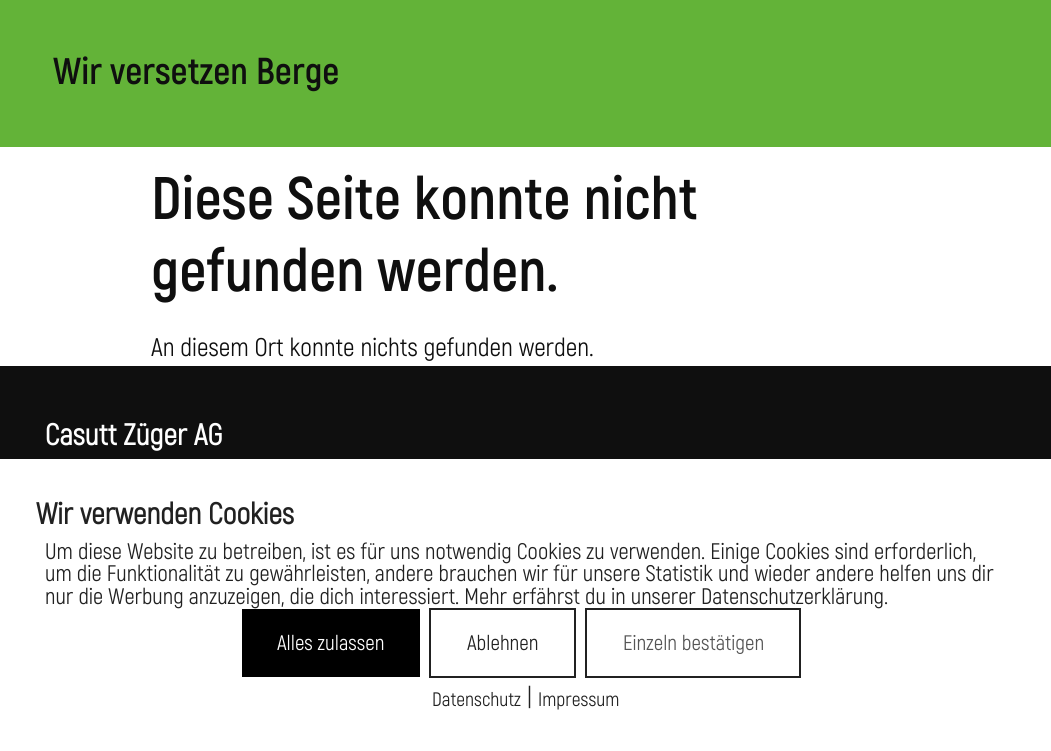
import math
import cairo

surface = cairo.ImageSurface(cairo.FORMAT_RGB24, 1051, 751)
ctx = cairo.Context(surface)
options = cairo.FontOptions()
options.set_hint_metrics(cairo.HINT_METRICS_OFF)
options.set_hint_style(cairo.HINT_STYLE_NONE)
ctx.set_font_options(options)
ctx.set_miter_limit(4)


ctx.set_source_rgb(1, 1, 1)
ctx.paint()
ctx.set_source_rgb(0.388, 0.702, 0.22)
ctx.rectangle(0, 0, 1051, 147)
ctx.fill()
ctx.select_font_face("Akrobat", cairo.FONT_SLANT_NORMAL, cairo.FONT_WEIGHT_BOLD)
ctx.set_font_size(37.5)
ctx.set_source_rgb(0.059, 0.059, 0.059)
ctx.move_to(53, 84)
ctx.show_text("Wir versetzen Berge")
ctx.set_font_size(60)
ctx.move_to(151, 219)
ctx.show_text("Diese Seite konnte nicht")
ctx.move_to(151, 291)
ctx.show_text("gefunden werden.")
ctx.select_font_face("Akrobat")
ctx.set_font_size(25.5)
ctx.move_to(151, 356)
ctx.show_text("An diesem Ort konnte nichts gefunden werden.")
ctx.rectangle(0, 366, 1051, 93)
ctx.fill()
ctx.select_font_face("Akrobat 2", cairo.FONT_SLANT_NORMAL, cairo.FONT_WEIGHT_BOLD)
ctx.set_font_size(30)
ctx.set_source_rgb(0.996, 0.996, 0.996)
ctx.move_to(45, 445)
ctx.show_text("Casutt Züger AG")
ctx.set_source_rgb(0.129, 0.129, 0.129)
ctx.move_to(36, 524)
ctx.show_text("Wir verwenden Cookies")
ctx.select_font_face("Akrobat")
ctx.set_font_size(22.5)
ctx.move_to(45, 559)
ctx.show_text("Um diese Website zu betreiben, ist es für uns notwendig Cookies zu verwenden. Einige Cookies sind erforderlich,")
ctx.move_to(45, 581)
ctx.show_text("um die Funktionalität zu gewährleisten, andere brauchen wir für unsere Statistik und wieder andere helfen uns dir")
ctx.move_to(45, 604)
ctx.show_text("nur die Werbung anzuzeigen, die dich interessiert. Mehr erfährst du in unserer Datenschutzerklärung.")
ctx.set_source_rgb(0, 0, 0)
ctx.rectangle(242, 609, 178, 68)
ctx.fill()
ctx.set_font_size(21)
ctx.set_source_rgb(0.996, 0.996, 0.996)
ctx.move_to(277, 650)
ctx.show_text("Alles zulassen")
ctx.rectangle(430, 609, 145, 68)
ctx.set_source_rgb(0.129, 0.129, 0.129)
ctx.stroke()
ctx.move_to(467, 650)
ctx.show_text("Ablehnen")
ctx.rectangle(586, 609, 214, 68)
ctx.stroke()
ctx.set_source_rgb(0.333, 0.333, 0.333)
ctx.move_to(623, 650)
ctx.show_text("Einzeln bestätigen")
ctx.set_font_size(19.5)
ctx.set_source_rgb(0.129, 0.129, 0.129)
ctx.move_to(432, 706)
ctx.show_text("Datenschutz")
ctx.set_font_size(25.5)
ctx.move_to(527, 706)
ctx.show_text("|")
ctx.set_font_size(19.5)
ctx.move_to(538, 706)
ctx.show_text("Impressum")
surface.write_to_png("page.png")
